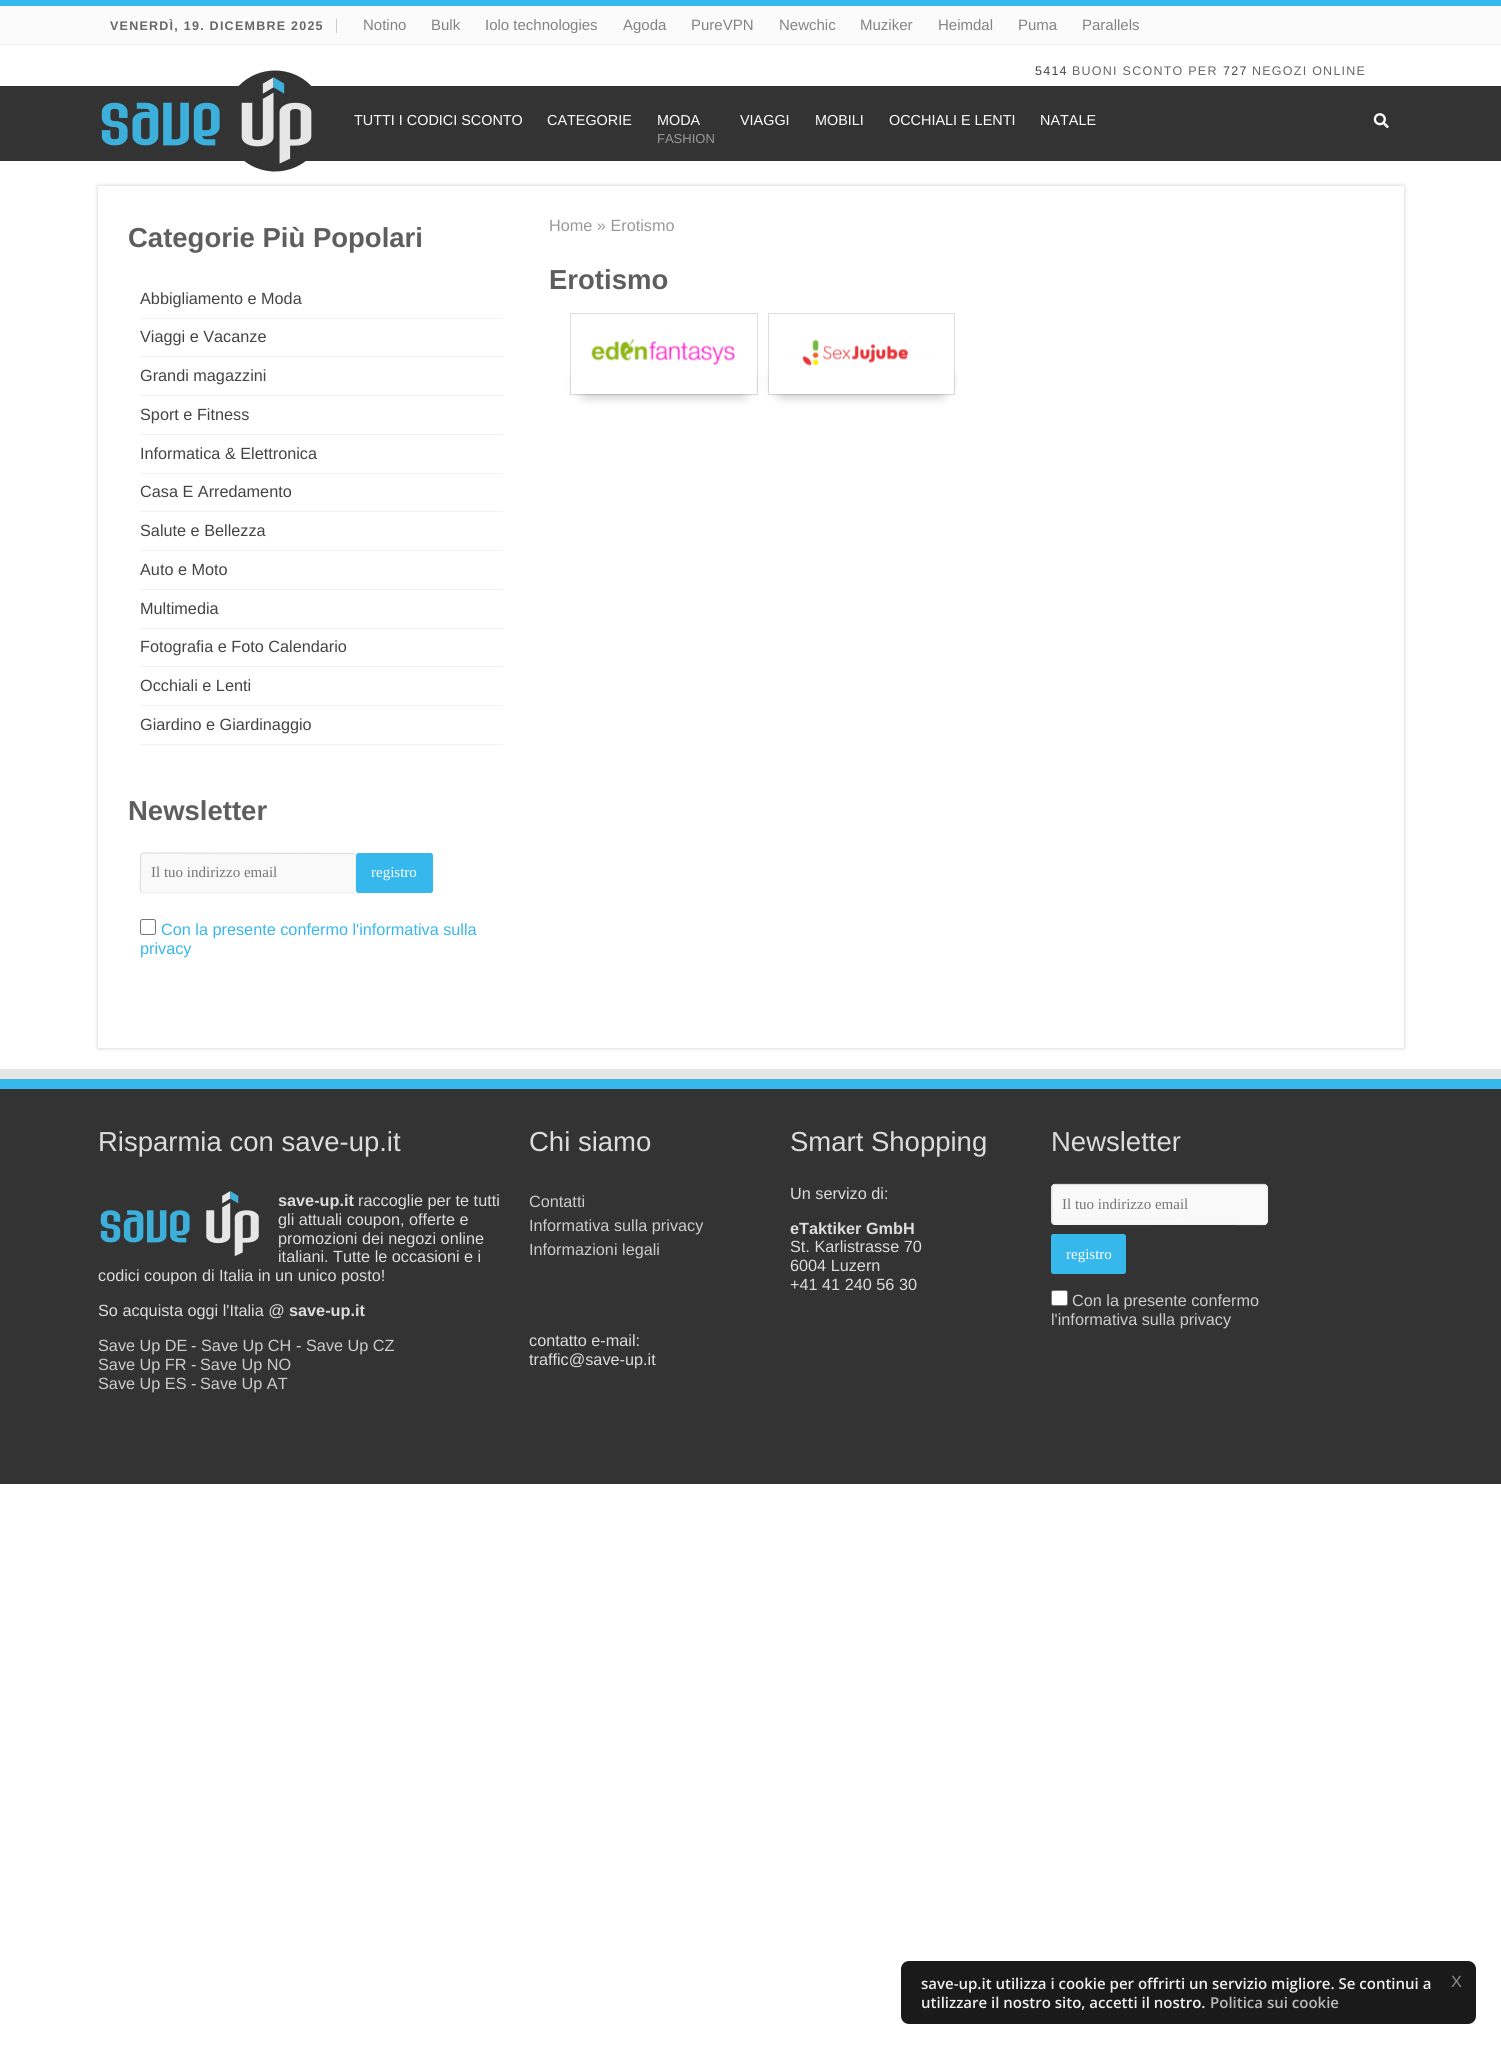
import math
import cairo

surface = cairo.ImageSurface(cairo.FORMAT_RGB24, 1501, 2048)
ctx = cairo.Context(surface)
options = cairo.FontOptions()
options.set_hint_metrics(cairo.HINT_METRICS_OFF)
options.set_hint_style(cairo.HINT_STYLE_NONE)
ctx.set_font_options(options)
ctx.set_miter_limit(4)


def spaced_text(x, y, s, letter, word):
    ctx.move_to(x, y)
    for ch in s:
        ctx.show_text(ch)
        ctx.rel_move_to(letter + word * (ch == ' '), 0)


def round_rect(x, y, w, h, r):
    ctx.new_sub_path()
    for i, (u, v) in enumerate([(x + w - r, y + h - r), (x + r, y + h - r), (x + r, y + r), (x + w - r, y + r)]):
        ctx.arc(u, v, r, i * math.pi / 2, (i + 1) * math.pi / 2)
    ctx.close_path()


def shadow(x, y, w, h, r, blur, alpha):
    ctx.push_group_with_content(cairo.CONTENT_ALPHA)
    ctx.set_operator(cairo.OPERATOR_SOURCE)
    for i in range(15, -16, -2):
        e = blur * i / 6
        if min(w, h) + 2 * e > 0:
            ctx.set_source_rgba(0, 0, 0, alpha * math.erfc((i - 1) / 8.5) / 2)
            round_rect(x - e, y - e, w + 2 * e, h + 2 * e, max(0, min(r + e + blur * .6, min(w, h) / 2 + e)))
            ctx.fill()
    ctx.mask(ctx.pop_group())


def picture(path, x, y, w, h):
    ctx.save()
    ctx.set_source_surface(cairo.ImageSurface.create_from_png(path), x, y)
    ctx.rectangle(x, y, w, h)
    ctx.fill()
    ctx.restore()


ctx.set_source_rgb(1, 1, 1)
ctx.paint()
ctx.set_source_rgb(0.216, 0.722, 0.922)
ctx.rectangle(0, 0, 1501, 6)
ctx.fill()
ctx.set_source_rgb(0.984, 0.984, 0.984)
ctx.rectangle(0, 6, 1501, 38)
ctx.fill()
ctx.set_source_rgb(0.925, 0.925, 0.925)
ctx.rectangle(0, 44, 1501, 1)
ctx.fill()
ctx.set_source_rgb(0.8, 0.8, 0.8)
ctx.rectangle(336, 19, 1, 14)
ctx.fill()
ctx.select_font_face("Liberation Sans", cairo.FONT_SLANT_NORMAL, cairo.FONT_WEIGHT_BOLD)
ctx.set_font_size(12.5)
ctx.set_source_rgb(0.4, 0.4, 0.4)
spaced_text(110, 30, "VENERDÌ, 19. DICEMBRE 2025", 1.25, 0)
ctx.select_font_face("Liberation Sans")
ctx.set_font_size(15)
ctx.set_source_rgb(0.514, 0.514, 0.514)
ctx.move_to(363, 30)
ctx.show_text("Notino")
ctx.move_to(431, 30)
ctx.show_text("Bulk")
ctx.move_to(485, 30)
ctx.show_text("Iolo technologies")
ctx.move_to(623, 30)
ctx.show_text("Agoda")
ctx.move_to(691, 30)
ctx.show_text("PureVPN")
ctx.move_to(779, 30)
ctx.show_text("Newchic")
ctx.move_to(860, 30)
ctx.show_text("Muziker")
ctx.move_to(938, 30)
ctx.show_text("Heimdal")
ctx.move_to(1018, 30)
ctx.show_text("Puma")
ctx.move_to(1082, 30)
ctx.show_text("Parallels")
ctx.set_font_size(12.5)
ctx.set_source_rgb(0.267, 0.267, 0.267)
spaced_text(1035, 75, "5414", 1.25, 0)
ctx.set_source_rgb(0.4, 0.4, 0.4)
spaced_text(1072, 75, "BUONI SCONTO PER", 1.25, 0)
ctx.set_source_rgb(0.267, 0.267, 0.267)
spaced_text(1223, 75, "727", 1.25, 0)
ctx.set_source_rgb(0.4, 0.4, 0.4)
spaced_text(1252, 75, "NEGOZI ONLINE", 1.25, 0)
ctx.set_source_rgb(0.2, 0.2, 0.2)
ctx.rectangle(0, 86, 1501, 75)
ctx.fill()
picture("img1.png", 101, 70, 211, 102)
ctx.set_font_size(14.4)
ctx.set_source_rgb(1, 1, 1)
ctx.move_to(354, 125)
ctx.show_text("TUTTI I CODICI SCONTO")
ctx.move_to(547, 125)
ctx.show_text("CATEGORIE")
ctx.move_to(657, 125)
ctx.show_text("MODA")
ctx.set_font_size(13)
ctx.set_source_rgb(0.6, 0.6, 0.6)
ctx.move_to(657, 143)
ctx.show_text("FASHION")
ctx.set_font_size(14.4)
ctx.set_source_rgb(1, 1, 1)
ctx.move_to(740, 125)
ctx.show_text("VIAGGI")
ctx.move_to(815, 125)
ctx.show_text("MOBILI")
ctx.move_to(889, 125)
ctx.show_text("OCCHIALI E LENTI")
ctx.move_to(1040, 125)
ctx.show_text("NATALE")
picture("img2.png", 1373, 113, 16, 16)
ctx.set_source_rgb(0.792, 0.792, 0.792)
shadow(98, 186, 1306, 862, 0, 2, 1)
ctx.set_source_rgb(1, 1, 1)
ctx.rectangle(98, 186, 1306, 862)
ctx.fill()
ctx.select_font_face("Liberation Sans", cairo.FONT_SLANT_NORMAL, cairo.FONT_WEIGHT_BOLD)
ctx.set_font_size(27.5)
ctx.set_source_rgb(0.369, 0.369, 0.369)
ctx.move_to(128, 247)
ctx.show_text("Categorie Più Popolari")
ctx.set_source_rgb(0.949, 0.949, 0.949)
ctx.rectangle(140, 318, 363, 1)
ctx.fill()
ctx.select_font_face("Liberation Sans")
ctx.set_font_size(16.25)
ctx.set_source_rgb(0.267, 0.267, 0.267)
ctx.move_to(140, 304)
ctx.show_text("Abbigliamento e Moda")
ctx.set_source_rgb(0.949, 0.949, 0.949)
ctx.rectangle(140, 356, 363, 1)
ctx.fill()
ctx.set_source_rgb(0.267, 0.267, 0.267)
ctx.move_to(140, 342)
ctx.show_text("Viaggi e Vacanze")
ctx.set_source_rgb(0.949, 0.949, 0.949)
ctx.rectangle(140, 395, 363, 1)
ctx.fill()
ctx.set_source_rgb(0.267, 0.267, 0.267)
ctx.move_to(140, 381)
ctx.show_text("Grandi magazzini")
ctx.set_source_rgb(0.949, 0.949, 0.949)
ctx.rectangle(140, 434, 363, 1)
ctx.fill()
ctx.set_source_rgb(0.267, 0.267, 0.267)
ctx.move_to(140, 420)
ctx.show_text("Sport e Fitness")
ctx.set_source_rgb(0.949, 0.949, 0.949)
ctx.rectangle(140, 473, 363, 1)
ctx.fill()
ctx.set_source_rgb(0.267, 0.267, 0.267)
ctx.move_to(140, 459)
ctx.show_text("Informatica & Elettronica")
ctx.set_source_rgb(0.949, 0.949, 0.949)
ctx.rectangle(140, 511, 363, 1)
ctx.fill()
ctx.set_source_rgb(0.267, 0.267, 0.267)
ctx.move_to(140, 497)
ctx.show_text("Casa E Arredamento")
ctx.set_source_rgb(0.949, 0.949, 0.949)
ctx.rectangle(140, 550, 363, 1)
ctx.fill()
ctx.set_source_rgb(0.267, 0.267, 0.267)
ctx.move_to(140, 536)
ctx.show_text("Salute e Bellezza")
ctx.set_source_rgb(0.949, 0.949, 0.949)
ctx.rectangle(140, 589, 363, 1)
ctx.fill()
ctx.set_source_rgb(0.267, 0.267, 0.267)
ctx.move_to(140, 575)
ctx.show_text("Auto e Moto")
ctx.set_source_rgb(0.949, 0.949, 0.949)
ctx.rectangle(140, 628, 363, 1)
ctx.fill()
ctx.set_source_rgb(0.267, 0.267, 0.267)
ctx.move_to(140, 614)
ctx.show_text("Multimedia")
ctx.set_source_rgb(0.949, 0.949, 0.949)
ctx.rectangle(140, 666, 363, 1)
ctx.fill()
ctx.set_source_rgb(0.267, 0.267, 0.267)
ctx.move_to(140, 652)
ctx.show_text("Fotografia e Foto Calendario")
ctx.set_source_rgb(0.949, 0.949, 0.949)
ctx.rectangle(140, 705, 363, 1)
ctx.fill()
ctx.set_source_rgb(0.267, 0.267, 0.267)
ctx.move_to(140, 691)
ctx.show_text("Occhiali e Lenti")
ctx.set_source_rgb(0.949, 0.949, 0.949)
ctx.rectangle(140, 744, 363, 1)
ctx.fill()
ctx.set_source_rgb(0.267, 0.267, 0.267)
ctx.move_to(140, 730)
ctx.show_text("Giardino e Giardinaggio")
ctx.select_font_face("Liberation Sans", cairo.FONT_SLANT_NORMAL, cairo.FONT_WEIGHT_BOLD)
ctx.set_font_size(27.5)
ctx.set_source_rgb(0.369, 0.369, 0.369)
ctx.move_to(128, 820)
ctx.show_text("Newsletter")
ctx.set_source_rgb(0.976, 0.976, 0.976)
round_rect(140, 853, 216, 41, 4)
ctx.fill()
ctx.new_path()
ctx.move_to(354.5, 854)
ctx.curve_to(357, 856.5, 355.5, 865, 355.5, 867.5)
ctx.line_to(355.5, 884.5)
ctx.curve_to(355.5, 886.5, 357, 893, 352.5, 893)
ctx.line_to(143, 893)
ctx.line_to(141.5, 892)
ctx.set_source_rgb(0.945, 0.945, 0.945)
ctx.set_line_width(1.2)
ctx.stroke()
ctx.new_path()
ctx.move_to(141.5, 892)
ctx.curve_to(139.5, 890, 140.5, 881.5, 140.5, 879)
ctx.line_to(140.5, 862)
ctx.curve_to(140.5, 859.5, 139.5, 853, 144, 853)
ctx.line_to(353.5, 853.5)
ctx.line_to(354.5, 854)
ctx.set_source_rgb(0.867, 0.867, 0.867)
ctx.stroke()
ctx.select_font_face("Liberation Serif")
ctx.set_font_size(15)
ctx.set_source_rgb(0.459, 0.459, 0.459)
ctx.move_to(151, 877)
ctx.show_text("Il tuo indirizzo email")
ctx.set_source_rgb(0.216, 0.722, 0.922)
round_rect(356, 853, 77, 40, 2.5)
ctx.fill()
ctx.set_source_rgb(1, 1, 1)
ctx.move_to(371, 877)
ctx.show_text("registro")
round_rect(140.5, 919.5, 15, 15, 2)
ctx.set_source_rgb(0.463, 0.463, 0.463)
ctx.set_line_width(1)
ctx.stroke()
ctx.select_font_face("Liberation Sans")
ctx.set_font_size(16.25)
ctx.set_source_rgb(0.216, 0.722, 0.922)
ctx.move_to(161, 935)
ctx.show_text("Con la presente confermo l'informativa sulla")
ctx.move_to(140, 954)
ctx.show_text("privacy")
ctx.set_source_rgb(0.6, 0.6, 0.6)
ctx.move_to(549, 231)
ctx.show_text("Home » Erotismo")
ctx.select_font_face("Liberation Sans", cairo.FONT_SLANT_NORMAL, cairo.FONT_WEIGHT_BOLD)
ctx.set_font_size(27.5)
ctx.set_source_rgb(0.369, 0.369, 0.369)
ctx.move_to(549, 289)
ctx.show_text("Erotismo")
ctx.rectangle(570.5, 313.5, 187, 81)
ctx.set_source_rgb(0.871, 0.871, 0.871)
ctx.stroke()
ctx.set_source_rgb(0, 0, 0)
shadow(578, 370, 172, 25, 9, 6, 0.3)
ctx.set_source_rgb(1, 1, 1)
ctx.rectangle(571, 359, 185, 35)
ctx.fill()
picture("img3.png", 591, 339, 144, 26)
ctx.rectangle(768.5, 313.5, 186, 81)
ctx.set_source_rgb(0.871, 0.871, 0.871)
ctx.stroke()
ctx.set_source_rgb(0, 0, 0)
shadow(775, 370, 173, 25, 9, 6, 0.3)
ctx.set_source_rgb(1, 1, 1)
ctx.rectangle(769, 359, 185, 35)
ctx.fill()
picture("img4.png", 802, 339, 106, 27)
ctx.set_source_rgb(0.902, 0.902, 0.902)
ctx.rectangle(0, 1069, 1501, 10)
ctx.fill()
ctx.set_source_rgb(0.2, 0.2, 0.2)
ctx.rectangle(0, 1089, 1501, 395)
ctx.fill()
ctx.set_source_rgb(0.216, 0.722, 0.922)
ctx.rectangle(0, 1079, 1501, 10)
ctx.fill()
ctx.select_font_face("Liberation Sans")
ctx.set_source_rgb(0.867, 0.867, 0.867)
ctx.move_to(98, 1151)
ctx.show_text("Risparmia con save-up.it")
picture("img5.png", 100, 1191, 159, 65)
ctx.select_font_face("Liberation Sans", cairo.FONT_SLANT_NORMAL, cairo.FONT_WEIGHT_BOLD)
ctx.set_font_size(16.25)
ctx.move_to(278, 1206)
ctx.show_text("save-up.it")
ctx.select_font_face("Liberation Sans")
ctx.move_to(358, 1206)
ctx.show_text("raccoglie per te tutti")
ctx.move_to(278, 1225)
ctx.show_text("gli attuali coupon, offerte e")
ctx.move_to(278, 1244)
ctx.show_text("promozioni dei negozi online")
ctx.move_to(278, 1262)
ctx.show_text("italiani. Tutte le occasioni e i")
ctx.move_to(98, 1281)
ctx.show_text("codici coupon di Italia in un unico posto!")
ctx.move_to(98, 1316)
ctx.show_text("So acquista oggi l'Italia @")
ctx.select_font_face("Liberation Sans", cairo.FONT_SLANT_NORMAL, cairo.FONT_WEIGHT_BOLD)
ctx.move_to(289, 1316)
ctx.show_text("save-up.it")
ctx.select_font_face("Liberation Sans")
ctx.set_source_rgb(0.8, 0.8, 0.8)
ctx.move_to(98, 1351)
ctx.show_text("Save Up DE")
ctx.set_source_rgb(0.867, 0.867, 0.867)
ctx.move_to(191, 1351)
ctx.show_text("-")
ctx.set_source_rgb(0.8, 0.8, 0.8)
ctx.move_to(201, 1351)
ctx.show_text("Save Up CH")
ctx.set_source_rgb(0.867, 0.867, 0.867)
ctx.move_to(296, 1351)
ctx.show_text("-")
ctx.set_source_rgb(0.8, 0.8, 0.8)
ctx.move_to(306, 1351)
ctx.show_text("Save Up CZ")
ctx.move_to(98, 1370)
ctx.show_text("Save Up FR")
ctx.set_source_rgb(0.867, 0.867, 0.867)
ctx.move_to(191, 1370)
ctx.show_text("-")
ctx.set_source_rgb(0.8, 0.8, 0.8)
ctx.move_to(200, 1370)
ctx.show_text("Save Up NO")
ctx.move_to(98, 1389)
ctx.show_text("Save Up ES")
ctx.set_source_rgb(0.867, 0.867, 0.867)
ctx.move_to(191, 1389)
ctx.show_text("-")
ctx.set_source_rgb(0.8, 0.8, 0.8)
ctx.move_to(200, 1389)
ctx.show_text("Save Up AT")
ctx.set_font_size(27.5)
ctx.set_source_rgb(0.867, 0.867, 0.867)
ctx.move_to(529, 1151)
ctx.show_text("Chi siamo")
ctx.set_font_size(16.25)
ctx.set_source_rgb(0.8, 0.8, 0.8)
ctx.move_to(529, 1207)
ctx.show_text("Contatti")
ctx.move_to(529, 1231)
ctx.show_text("Informativa sulla privacy")
ctx.move_to(529, 1255)
ctx.show_text("Informazioni legali")
ctx.set_source_rgb(0.867, 0.867, 0.867)
ctx.move_to(529, 1346)
ctx.show_text("contatto e-mail:")
ctx.move_to(529, 1365)
ctx.show_text("traffic@save-up.it")
ctx.set_font_size(27.5)
ctx.move_to(790, 1151)
ctx.show_text("Smart Shopping")
ctx.set_font_size(16.25)
ctx.move_to(790, 1199)
ctx.show_text("Un servizo di:")
ctx.select_font_face("Liberation Sans", cairo.FONT_SLANT_NORMAL, cairo.FONT_WEIGHT_BOLD)
ctx.move_to(790, 1234)
ctx.show_text("eTaktiker GmbH")
ctx.select_font_face("Liberation Sans")
ctx.move_to(790, 1252)
ctx.show_text("St. Karlistrasse 70")
ctx.move_to(790, 1271)
ctx.show_text("6004 Luzern")
ctx.move_to(790, 1290)
ctx.show_text("+41 41 240 56 30")
ctx.set_font_size(27.5)
ctx.move_to(1051, 1151)
ctx.show_text("Newsletter")
ctx.set_source_rgb(0.976, 0.976, 0.976)
round_rect(1051, 1184, 217, 41, 4)
ctx.fill()
ctx.new_path()
ctx.move_to(1266, 1185.5)
ctx.curve_to(1268, 1187.5, 1267, 1196, 1267, 1199)
ctx.line_to(1267, 1215.5)
ctx.curve_to(1267, 1218, 1268, 1224.5, 1264, 1224.5)
ctx.line_to(1054, 1224)
ctx.line_to(1053, 1223.5)
ctx.set_source_rgb(0.945, 0.945, 0.945)
ctx.set_line_width(1.2)
ctx.stroke()
ctx.new_path()
ctx.move_to(1053, 1223.5)
ctx.curve_to(1050.5, 1221, 1052, 1212.5, 1052, 1210)
ctx.line_to(1052, 1193)
ctx.curve_to(1052, 1191, 1050.5, 1184.5, 1055, 1184.5)
ctx.line_to(1264.5, 1184.5)
ctx.line_to(1266, 1185.5)
ctx.set_source_rgb(0.867, 0.867, 0.867)
ctx.stroke()
ctx.select_font_face("Liberation Serif")
ctx.set_font_size(15)
ctx.set_source_rgb(0.459, 0.459, 0.459)
ctx.move_to(1062, 1209)
ctx.show_text("Il tuo indirizzo email")
ctx.set_source_rgb(0.216, 0.722, 0.922)
round_rect(1051, 1234, 75, 40, 2.5)
ctx.fill()
ctx.set_source_rgb(1, 1, 1)
ctx.move_to(1066, 1259)
ctx.show_text("registro")
round_rect(1051.5, 1290.5, 16, 15, 2)
ctx.fill_preserve()
ctx.set_source_rgb(0.463, 0.463, 0.463)
ctx.set_line_width(1)
ctx.stroke()
ctx.select_font_face("Liberation Sans")
ctx.set_font_size(16.25)
ctx.set_source_rgb(0.8, 0.8, 0.8)
ctx.move_to(1072, 1306)
ctx.show_text("Con la presente confermo")
ctx.move_to(1051, 1325)
ctx.show_text("l'informativa sulla privacy")
ctx.set_source_rgb(0.102, 0.102, 0.102)
round_rect(901, 1961, 575, 63, 8)
ctx.fill()
ctx.select_font_face("Open Sans SemiBold")
ctx.set_font_size(15)
ctx.set_source_rgb(0.941, 0.941, 0.941)
ctx.move_to(921, 1989)
ctx.show_text("save-up.it utilizza i cookie per offrirti un servizio migliore. Se continui a")
ctx.move_to(921, 2008)
ctx.show_text("utilizzare il nostro sito, accetti il nostro.")
ctx.set_source_rgb(0.733, 0.733, 0.733)
ctx.move_to(1210, 2008)
ctx.show_text("Politica sui cookie")
ctx.select_font_face("Liberation Sans")
ctx.set_font_size(16.25)
ctx.set_source_rgb(0.553, 0.553, 0.553)
ctx.move_to(1451, 1987)
ctx.show_text("X")
surface.write_to_png("page.png")
